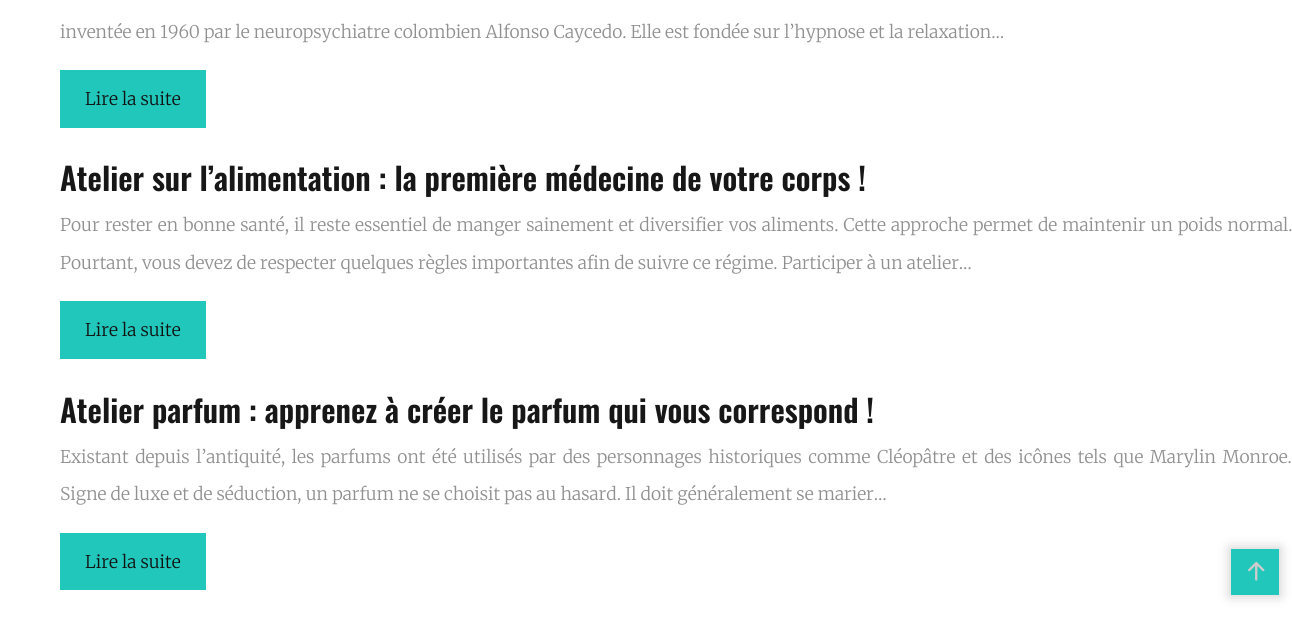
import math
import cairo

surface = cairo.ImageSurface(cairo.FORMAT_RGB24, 1292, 621)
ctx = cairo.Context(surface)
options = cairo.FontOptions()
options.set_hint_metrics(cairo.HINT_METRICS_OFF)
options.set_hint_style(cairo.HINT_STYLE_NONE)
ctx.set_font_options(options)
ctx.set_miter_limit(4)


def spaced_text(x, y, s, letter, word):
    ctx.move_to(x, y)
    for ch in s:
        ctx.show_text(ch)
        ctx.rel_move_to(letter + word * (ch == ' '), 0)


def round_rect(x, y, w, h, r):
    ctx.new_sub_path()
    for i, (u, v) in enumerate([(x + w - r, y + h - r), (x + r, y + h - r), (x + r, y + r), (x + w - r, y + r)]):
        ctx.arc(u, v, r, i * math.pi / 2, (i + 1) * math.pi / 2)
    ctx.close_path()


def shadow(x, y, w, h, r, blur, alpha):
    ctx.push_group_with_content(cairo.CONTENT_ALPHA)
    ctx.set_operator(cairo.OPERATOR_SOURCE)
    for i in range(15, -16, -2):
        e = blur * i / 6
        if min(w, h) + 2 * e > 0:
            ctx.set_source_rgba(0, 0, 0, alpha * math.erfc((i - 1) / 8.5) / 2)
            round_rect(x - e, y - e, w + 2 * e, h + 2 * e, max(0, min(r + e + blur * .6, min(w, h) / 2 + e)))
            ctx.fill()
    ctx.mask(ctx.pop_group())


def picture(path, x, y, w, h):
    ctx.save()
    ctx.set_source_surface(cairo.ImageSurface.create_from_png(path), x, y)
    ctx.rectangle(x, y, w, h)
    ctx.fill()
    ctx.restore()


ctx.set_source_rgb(1, 1, 1)
ctx.paint()
ctx.select_font_face("Merriweather Light")
ctx.set_font_size(17.5)
ctx.set_source_rgb(0.565, 0.565, 0.565)
ctx.move_to(60, 38)
ctx.show_text("inventée en 1960 par le neuropsychiatre colombien Alfonso Caycedo. Elle est fondée sur l’hypnose et la relaxation…")
ctx.set_source_rgb(0.129, 0.78, 0.733)
ctx.rectangle(60, 70, 146, 58)
ctx.fill()
ctx.set_source_rgb(0.067, 0.067, 0.067)
ctx.move_to(85, 105)
ctx.show_text("Lire la suite")
ctx.select_font_face("Oswald SemiBold")
ctx.set_font_size(31.25)
ctx.set_source_rgb(0.09, 0.09, 0.09)
ctx.move_to(60, 191)
ctx.show_text("Atelier sur l’alimentation : la première médecine de votre corps !")
ctx.select_font_face("Merriweather Light")
ctx.set_font_size(17.5)
ctx.set_source_rgb(0.565, 0.565, 0.565)
spaced_text(60, 231, "Pour rester en bonne santé, il reste essentiel de manger sainement et diversifier vos aliments. Cette approche permet de maintenir un poids normal.", 0, 0.85)
ctx.move_to(60, 269)
ctx.show_text("Pourtant, vous devez de respecter quelques règles importantes afin de suivre ce régime. Participer à un atelier…")
ctx.set_source_rgb(0.129, 0.78, 0.733)
ctx.rectangle(60, 301, 146, 58)
ctx.fill()
ctx.set_source_rgb(0.067, 0.067, 0.067)
ctx.move_to(85, 336)
ctx.show_text("Lire la suite")
ctx.select_font_face("Oswald SemiBold")
ctx.set_font_size(31.25)
ctx.set_source_rgb(0.09, 0.09, 0.09)
ctx.move_to(60, 423)
ctx.show_text("Atelier parfum : apprenez à créer le parfum qui vous correspond !")
ctx.select_font_face("Merriweather Light")
ctx.set_font_size(17.5)
ctx.set_source_rgb(0.565, 0.565, 0.565)
spaced_text(60, 463, "Existant depuis l’antiquité, les parfums ont été utilisés par des personnages historiques comme Cléopâtre et des icônes tels que Marylin Monroe.", 0, 2.4)
ctx.move_to(60, 500)
ctx.show_text("Signe de luxe et de séduction, un parfum ne se choisit pas au hasard. Il doit généralement se marier…")
ctx.set_source_rgb(0.129, 0.78, 0.733)
ctx.rectangle(60, 533, 146, 57)
ctx.fill()
ctx.set_source_rgb(0.067, 0.067, 0.067)
ctx.move_to(85, 568)
ctx.show_text("Lire la suite")
ctx.set_source_rgb(0, 0, 0)
shadow(1230, 548, 50, 48, 0, 6, 0.2)
ctx.set_source_rgb(0.129, 0.78, 0.733)
ctx.rectangle(1231, 549, 48, 46)
ctx.fill()
picture("img1.png", 1248, 561, 17, 20)
surface.write_to_png("page.png")
